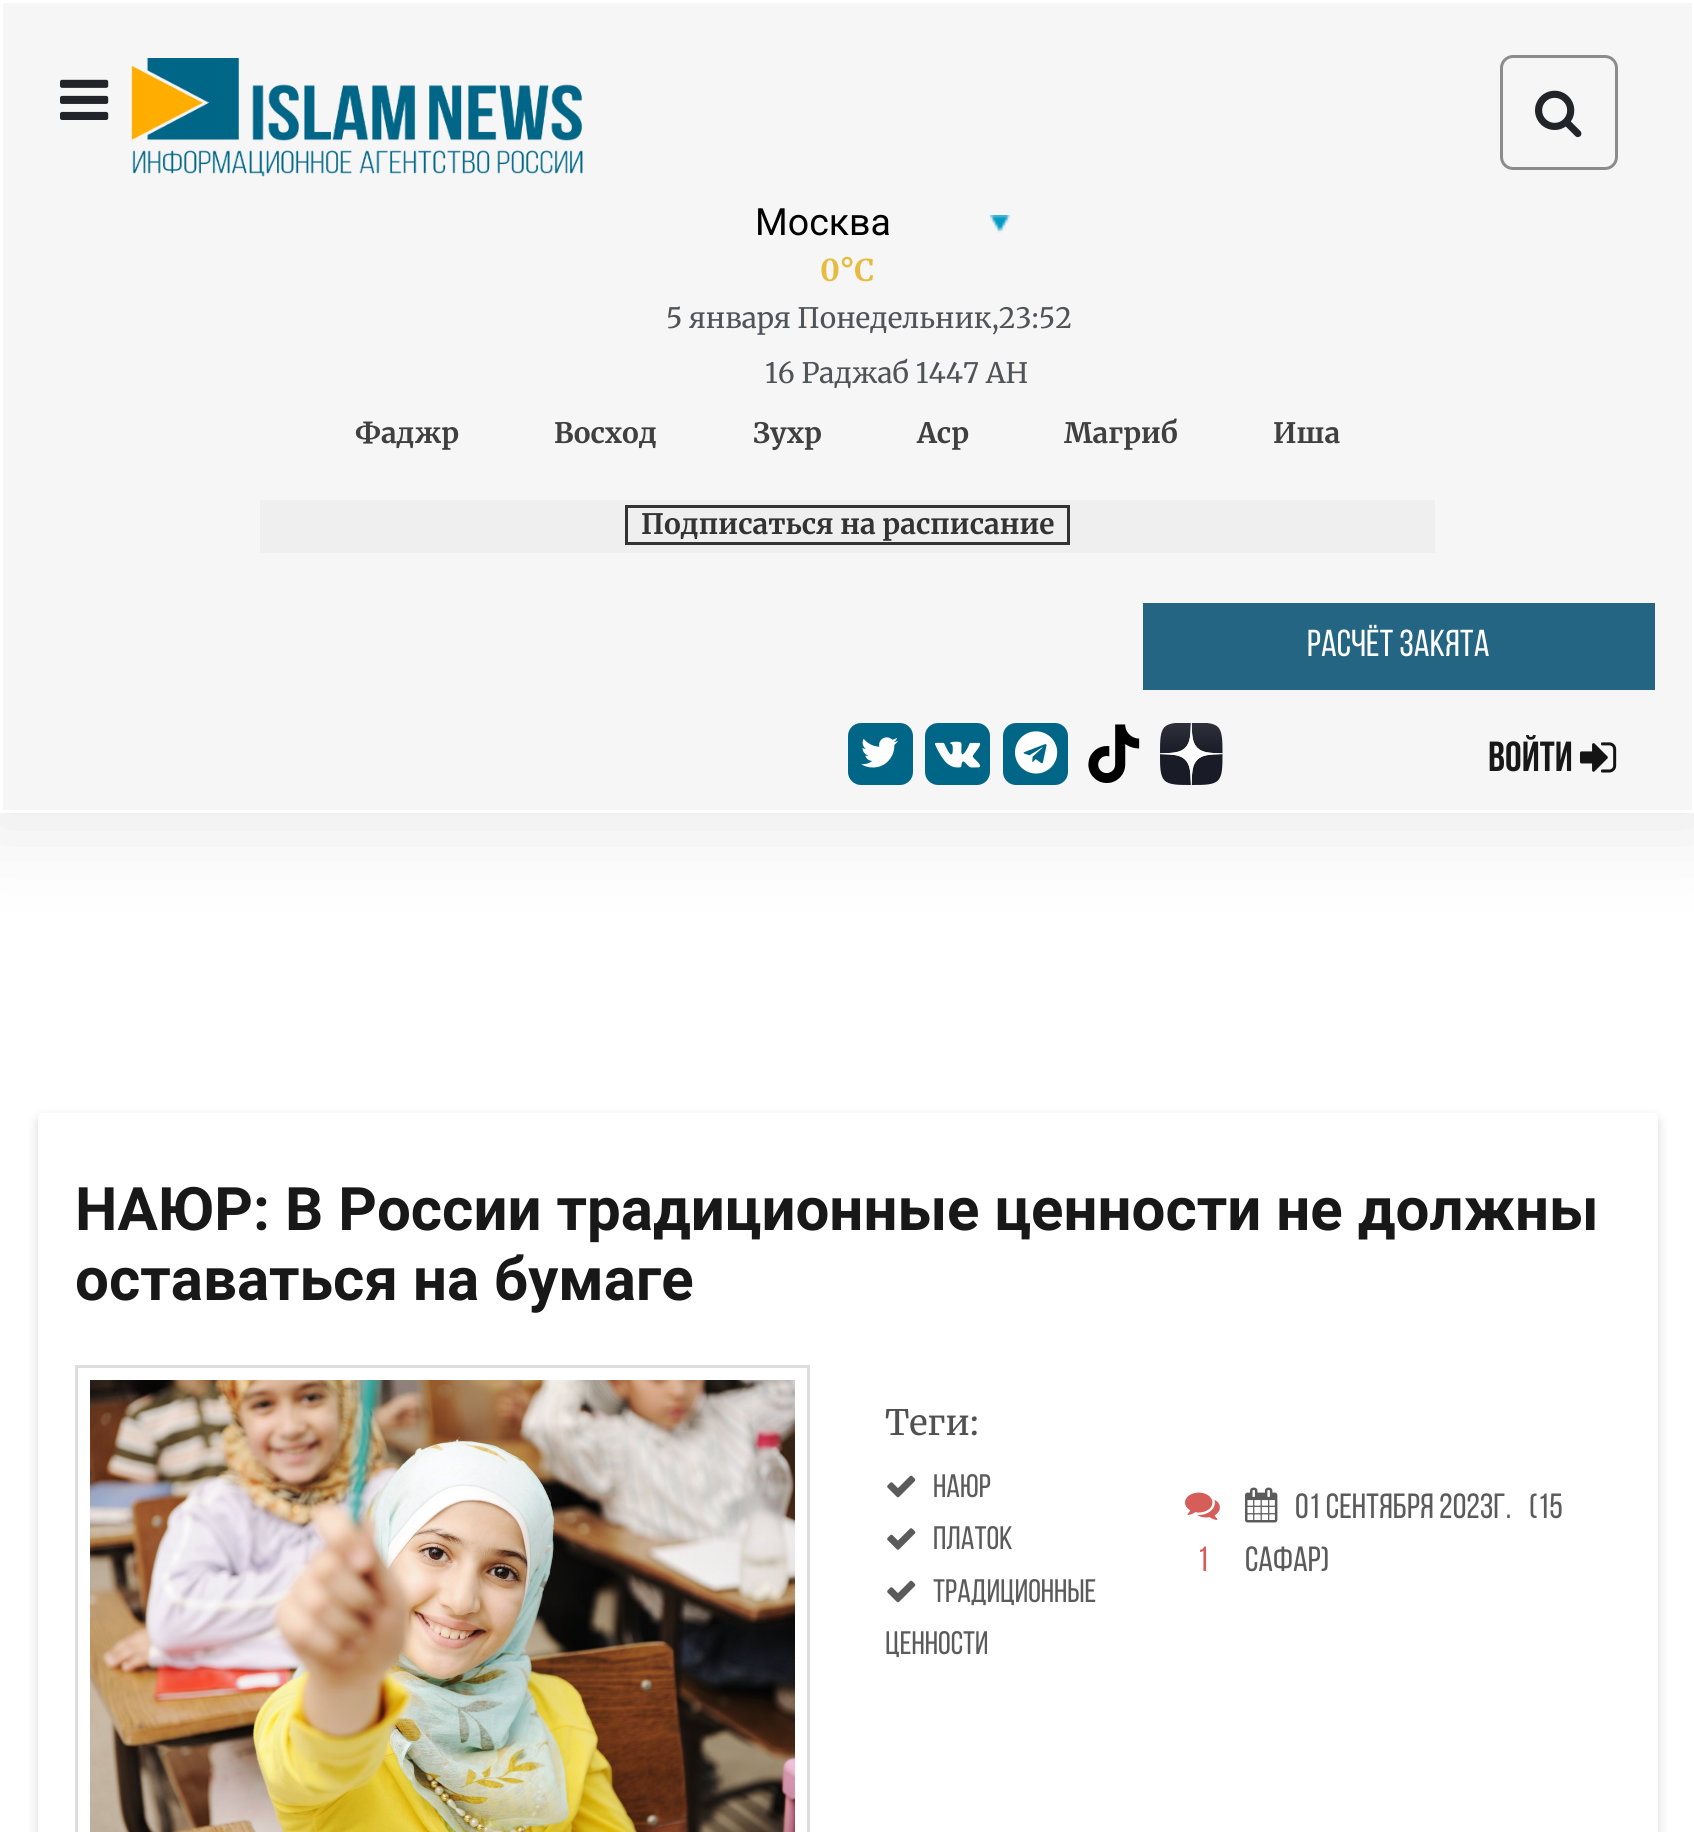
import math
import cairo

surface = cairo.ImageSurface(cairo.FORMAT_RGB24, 1694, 1832)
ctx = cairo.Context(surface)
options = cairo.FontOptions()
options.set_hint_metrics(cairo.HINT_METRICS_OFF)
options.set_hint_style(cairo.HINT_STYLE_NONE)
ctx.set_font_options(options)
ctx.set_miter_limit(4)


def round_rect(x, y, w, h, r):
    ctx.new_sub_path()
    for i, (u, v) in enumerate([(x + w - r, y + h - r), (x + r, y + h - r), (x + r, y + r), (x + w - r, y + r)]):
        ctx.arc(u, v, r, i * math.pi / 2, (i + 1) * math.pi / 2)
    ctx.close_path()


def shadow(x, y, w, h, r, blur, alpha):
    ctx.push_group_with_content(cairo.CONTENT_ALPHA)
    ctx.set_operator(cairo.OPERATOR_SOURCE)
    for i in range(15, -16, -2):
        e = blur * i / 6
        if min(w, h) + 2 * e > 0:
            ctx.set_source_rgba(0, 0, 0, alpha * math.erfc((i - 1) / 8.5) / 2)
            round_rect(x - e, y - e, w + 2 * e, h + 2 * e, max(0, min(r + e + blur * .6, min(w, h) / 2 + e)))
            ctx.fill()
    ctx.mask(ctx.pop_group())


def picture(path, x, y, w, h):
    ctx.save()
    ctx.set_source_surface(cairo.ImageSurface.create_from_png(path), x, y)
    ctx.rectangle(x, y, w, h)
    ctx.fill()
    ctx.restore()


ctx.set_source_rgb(1, 1, 1)
ctx.paint()
ctx.set_source_rgb(0, 0, 0)
shadow(-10, -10, 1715, 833, 0, 48.5, 0.1)
ctx.set_source_rgb(0.961, 0.961, 0.961)
ctx.rectangle(1.5, 1.5, 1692, 810)
ctx.fill_preserve()
ctx.set_source_rgb(1, 1, 1)
ctx.set_line_width(3)
ctx.stroke()
round_rect(1501.5, 56.5, 115, 112, 11.5)
ctx.set_source_rgb(0.549, 0.549, 0.549)
ctx.stroke()
picture("img1.png", 1535, 90, 47, 48)
picture("img2.png", 60, 79, 49, 41)
picture("img3.png", 131, 58, 452, 119)
picture("img4.png", 990, 215, 20, 18)
ctx.select_font_face("Roboto")
ctx.set_font_size(37.5)
ctx.set_source_rgb(0, 0, 0)
ctx.move_to(755, 235)
ctx.show_text("Москва")
ctx.select_font_face("Merriweather", cairo.FONT_SLANT_NORMAL, cairo.FONT_WEIGHT_BOLD)
ctx.set_font_size(30)
ctx.set_source_rgb(0.91, 0.729, 0.251)
ctx.move_to(820, 281)
ctx.show_text("0°C")
ctx.select_font_face("Merriweather")
ctx.set_font_size(28.1)
ctx.set_source_rgb(0.314, 0.329, 0.341)
ctx.move_to(666, 328)
ctx.show_text("5 января Понедельник,23:52")
ctx.move_to(765, 383)
ctx.show_text("16 Раджаб 1447 AH")
ctx.select_font_face("Merriweather", cairo.FONT_SLANT_NORMAL, cairo.FONT_WEIGHT_BOLD)
ctx.set_source_rgb(0.251, 0.251, 0.251)
ctx.move_to(355, 443)
ctx.show_text("Фаджр")
ctx.move_to(554, 443)
ctx.show_text("Восход")
ctx.move_to(753, 443)
ctx.show_text("Зухр")
ctx.move_to(917, 443)
ctx.show_text("Аср")
ctx.move_to(1064, 443)
ctx.show_text("Магриб")
ctx.move_to(1273, 443)
ctx.show_text("Иша")
ctx.set_source_rgb(0.937, 0.937, 0.937)
ctx.rectangle(260, 500, 1175, 53)
ctx.fill()
ctx.rectangle(626.5, 506.5, 442, 37)
ctx.set_source_rgb(0.2, 0.2, 0.2)
ctx.stroke()
ctx.move_to(641, 534)
ctx.show_text("Подписаться на расписание")
ctx.set_source_rgb(0.137, 0.396, 0.514)
ctx.rectangle(1143, 603, 512, 87)
ctx.fill()
ctx.select_font_face("Bebas Neue")
ctx.set_font_size(37.5)
ctx.set_source_rgb(1, 1, 1)
ctx.move_to(1307, 656)
ctx.show_text("РАСЧЁТ ЗАКЯТА")
ctx.set_source_rgb(0, 0.4, 0.529)
round_rect(848, 723, 65, 62, 13)
ctx.fill()
picture("img5.png", 861, 737, 37, 31)
round_rect(925, 723, 65, 62, 13)
ctx.fill()
picture("img6.png", 935, 741, 46, 27)
round_rect(1003, 723, 65, 62, 13)
ctx.fill()
picture("img7.png", 1015, 731, 43, 43)
picture("img8.png", 1088, 724, 52, 60)
picture("img9.png", 1160, 723, 63, 62)
ctx.select_font_face("Bebas Neue", cairo.FONT_SLANT_NORMAL, cairo.FONT_WEIGHT_BOLD)
ctx.set_font_size(42)
ctx.set_source_rgb(0.094, 0.094, 0.094)
ctx.move_to(1488, 771)
ctx.show_text("ВОЙТИ")
picture("img10.png", 1580, 742, 37, 31)
ctx.set_source_rgb(0, 0, 0)
shadow(38, 1118, 1620, 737, 5, 6, 0.15)
ctx.set_source_rgb(1, 1, 1)
round_rect(38, 1113, 1620, 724, 5)
ctx.fill()
ctx.select_font_face("Roboto", cairo.FONT_SLANT_NORMAL, cairo.FONT_WEIGHT_BOLD)
ctx.set_font_size(60)
ctx.set_source_rgb(0.094, 0.094, 0.094)
ctx.move_to(75, 1230)
ctx.show_text("НАЮР: В России традиционные ценности не должны")
ctx.move_to(75, 1300)
ctx.show_text("оставаться на бумаге")
ctx.rectangle(76.5, 1366.5, 732, 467)
ctx.set_source_rgb(0.867, 0.867, 0.867)
ctx.stroke()
picture("img11.png", 90, 1380, 705, 452)
ctx.select_font_face("Merriweather")
ctx.set_font_size(35)
ctx.set_source_rgb(0.318, 0.318, 0.318)
ctx.move_to(885, 1435)
ctx.show_text("Теги:")
picture("img12.png", 887, 1475, 29, 23)
ctx.select_font_face("Bebas Neue")
ctx.set_font_size(32.5)
ctx.set_source_rgb(0.357, 0.357, 0.357)
ctx.move_to(933, 1497)
ctx.show_text("НАЮР")
picture("img13.png", 887, 1528, 29, 22)
ctx.move_to(933, 1549)
ctx.show_text("платок")
picture("img12.png", 887, 1580, 29, 23)
ctx.move_to(933, 1602)
ctx.show_text("традиционные")
ctx.move_to(885, 1654)
ctx.show_text("ценности")
picture("img14.png", 1185, 1492, 35, 28)
ctx.set_font_size(35)
ctx.set_source_rgb(0.839, 0.369, 0.353)
ctx.move_to(1197, 1571)
ctx.show_text("1")
picture("img15.png", 1245, 1487, 33, 36)
ctx.set_source_rgb(0.357, 0.357, 0.357)
ctx.move_to(1295, 1518)
ctx.show_text("01 Сентября 2023г.")
ctx.move_to(1529, 1518)
ctx.show_text("(15")
ctx.move_to(1245, 1571)
ctx.show_text("Сафар)")
surface.write_to_png("page.png")
